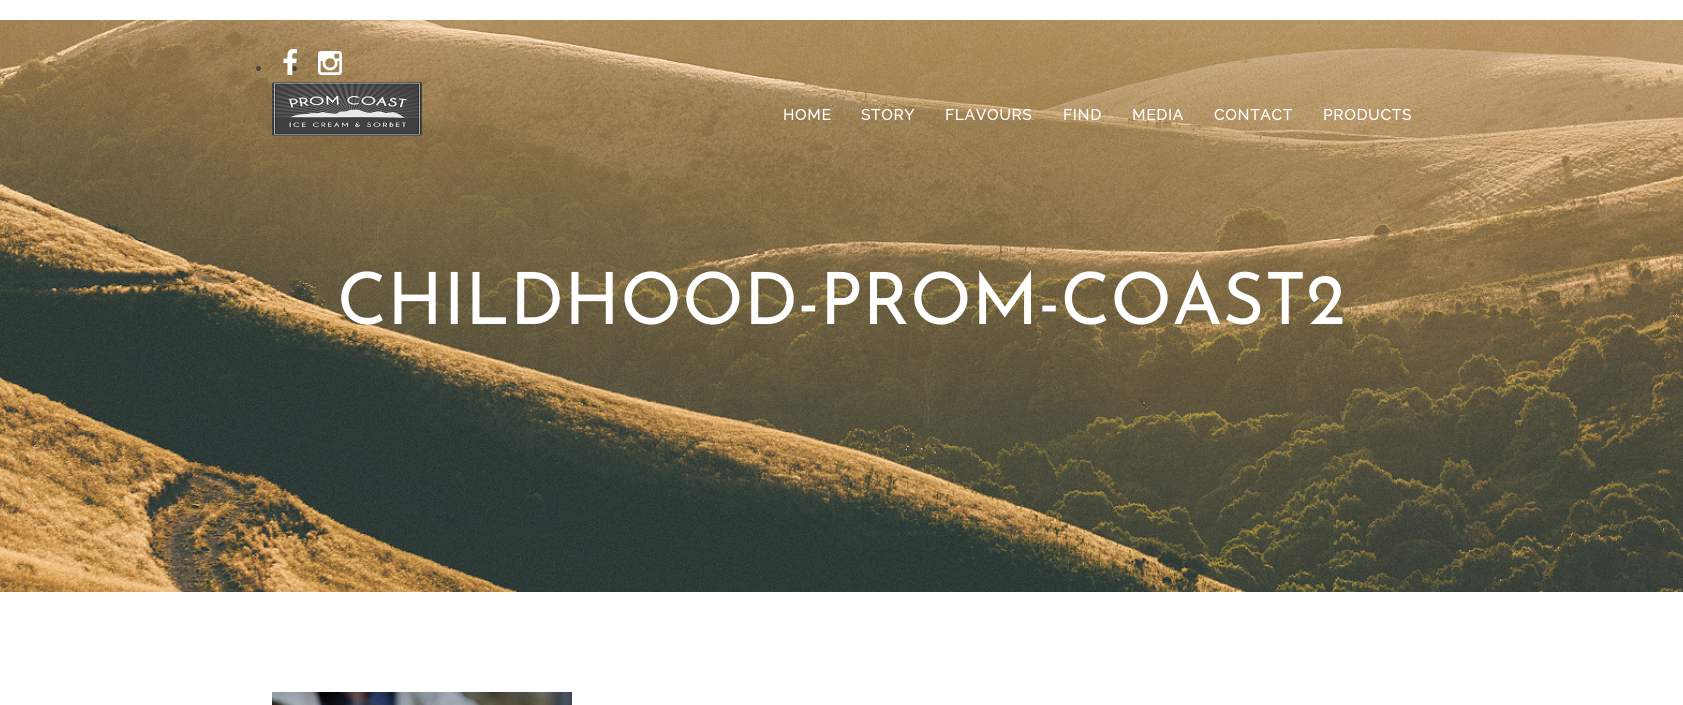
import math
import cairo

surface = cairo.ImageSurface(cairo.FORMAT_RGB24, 1683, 705)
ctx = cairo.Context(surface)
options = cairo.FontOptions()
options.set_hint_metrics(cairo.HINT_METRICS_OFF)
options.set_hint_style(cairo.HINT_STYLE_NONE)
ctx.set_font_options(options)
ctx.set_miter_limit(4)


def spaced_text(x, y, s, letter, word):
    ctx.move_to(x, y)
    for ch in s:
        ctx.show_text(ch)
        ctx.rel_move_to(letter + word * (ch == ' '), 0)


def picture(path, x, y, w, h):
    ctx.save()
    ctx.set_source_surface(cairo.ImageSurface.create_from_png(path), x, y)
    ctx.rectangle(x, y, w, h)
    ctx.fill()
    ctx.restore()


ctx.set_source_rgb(1, 1, 1)
ctx.paint()
picture("img5.png", 0, 20, 1683, 572)
ctx.set_source_rgb(0.275, 0.263, 0.259)
ctx.arc(258.5, 68.5, 2.5, 0, 2 * math.pi)
ctx.fill()
ctx.arc(294.5, 68.5, 2.5, 0, 2 * math.pi)
ctx.fill()
picture("img1.png", 283, 49, 14, 26)
picture("img2.png", 318, 51, 24, 24)
picture("img3.png", 272, 82, 150, 54)
picture("img4.png", 272, 82, 150, 54)
ctx.select_font_face("Raleway", cairo.FONT_SLANT_NORMAL, cairo.FONT_WEIGHT_BOLD)
ctx.set_font_size(15)
ctx.set_source_rgb(1, 1, 1)
spaced_text(783, 120, "HOME", 1, 0)
spaced_text(861, 120, "STORY", 1, 0)
spaced_text(945, 120, "FLAVOURS", 1, 0)
spaced_text(1063, 120, "FIND", 1, 0)
spaced_text(1132, 120, "MEDIA", 1, 0)
spaced_text(1214, 120, "CONTACT", 1, 0)
spaced_text(1323, 120, "PRODUCTS", 1, 0)
ctx.select_font_face("Josefin Sans Thin")
ctx.set_font_size(72)
ctx.move_to(337, 324)
ctx.show_text("CHILDHOOD-PROM-COAST2")
picture("img6.png", 272, 692, 300, 13)
surface.write_to_png("page.png")
